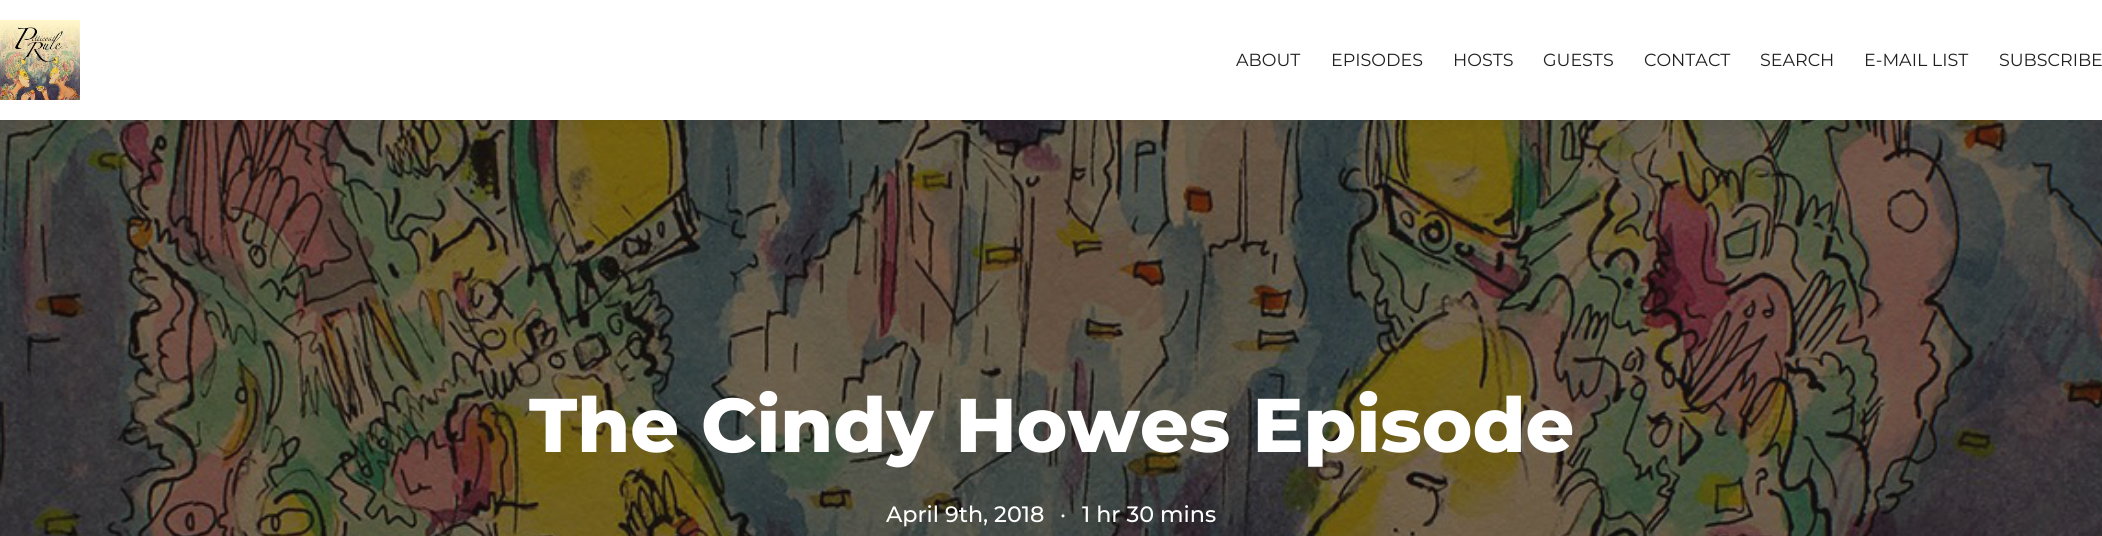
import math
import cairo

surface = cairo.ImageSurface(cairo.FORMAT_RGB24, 2102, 536)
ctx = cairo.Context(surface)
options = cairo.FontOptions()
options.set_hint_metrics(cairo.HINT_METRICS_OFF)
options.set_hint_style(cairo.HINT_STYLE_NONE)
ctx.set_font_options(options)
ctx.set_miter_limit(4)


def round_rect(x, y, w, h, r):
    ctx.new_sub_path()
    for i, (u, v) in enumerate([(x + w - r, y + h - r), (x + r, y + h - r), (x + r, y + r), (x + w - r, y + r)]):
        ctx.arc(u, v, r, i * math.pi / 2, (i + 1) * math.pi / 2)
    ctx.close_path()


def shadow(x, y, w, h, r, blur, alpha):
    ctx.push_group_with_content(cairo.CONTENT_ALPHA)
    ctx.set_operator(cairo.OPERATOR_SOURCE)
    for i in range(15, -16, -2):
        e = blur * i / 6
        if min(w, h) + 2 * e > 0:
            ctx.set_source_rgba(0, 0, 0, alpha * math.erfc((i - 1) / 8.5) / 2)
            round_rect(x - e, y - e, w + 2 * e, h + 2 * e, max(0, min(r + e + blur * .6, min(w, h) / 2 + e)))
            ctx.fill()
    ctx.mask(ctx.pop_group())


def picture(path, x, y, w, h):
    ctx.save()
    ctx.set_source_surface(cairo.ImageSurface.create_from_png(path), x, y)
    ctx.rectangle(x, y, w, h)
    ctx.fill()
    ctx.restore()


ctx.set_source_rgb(1, 1, 1)
ctx.paint()
picture("img2.png", 0, 120, 2102, 416)
ctx.set_source_rgb(0, 0, 0)
shadow(0, 0, 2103, 120, 0, 10, 0.1)
ctx.set_source_rgb(1, 1, 1)
ctx.rectangle(0, 0, 2102, 120)
ctx.fill()
picture("img1.png", 0, 20, 80, 80)
ctx.select_font_face("Montserrat")
ctx.set_font_size(17.5)
ctx.set_source_rgb(0.125, 0.125, 0.125)
ctx.move_to(1236, 66)
ctx.show_text("ABOUT")
ctx.move_to(1331, 66)
ctx.show_text("EPISODES")
ctx.move_to(1453, 66)
ctx.show_text("HOSTS")
ctx.move_to(1543, 66)
ctx.show_text("GUESTS")
ctx.move_to(1644, 66)
ctx.show_text("CONTACT")
ctx.move_to(1760, 66)
ctx.show_text("SEARCH")
ctx.move_to(1864, 66)
ctx.show_text("E-MAIL LIST")
ctx.move_to(1999, 66)
ctx.show_text("SUBSCRIBE")
ctx.select_font_face("Montserrat ExtraBold")
ctx.set_font_size(76)
ctx.set_source_rgb(1, 1, 1)
ctx.move_to(529, 452)
ctx.show_text("The Cindy Howes Episode")
ctx.select_font_face("Montserrat Medium")
ctx.set_font_size(22.25)
ctx.move_to(886, 522)
ctx.show_text("April 9th, 2018")
ctx.move_to(1060, 522)
ctx.show_text("·")
ctx.move_to(1082, 522)
ctx.show_text("1 hr 30 mins")
surface.write_to_png("page.png")
